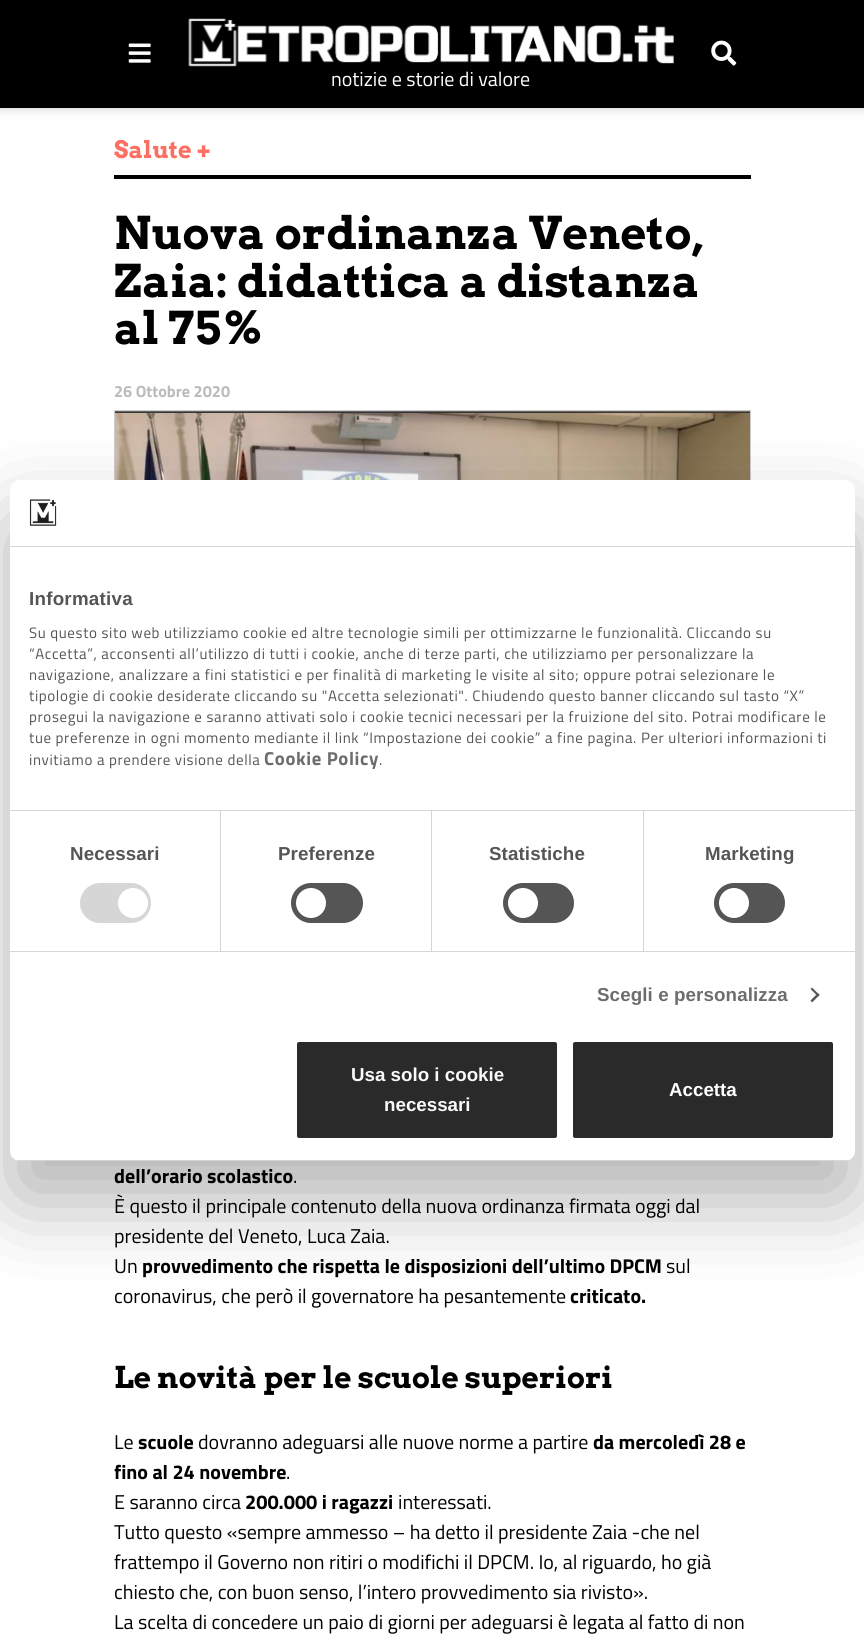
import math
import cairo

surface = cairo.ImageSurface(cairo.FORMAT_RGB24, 864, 1640)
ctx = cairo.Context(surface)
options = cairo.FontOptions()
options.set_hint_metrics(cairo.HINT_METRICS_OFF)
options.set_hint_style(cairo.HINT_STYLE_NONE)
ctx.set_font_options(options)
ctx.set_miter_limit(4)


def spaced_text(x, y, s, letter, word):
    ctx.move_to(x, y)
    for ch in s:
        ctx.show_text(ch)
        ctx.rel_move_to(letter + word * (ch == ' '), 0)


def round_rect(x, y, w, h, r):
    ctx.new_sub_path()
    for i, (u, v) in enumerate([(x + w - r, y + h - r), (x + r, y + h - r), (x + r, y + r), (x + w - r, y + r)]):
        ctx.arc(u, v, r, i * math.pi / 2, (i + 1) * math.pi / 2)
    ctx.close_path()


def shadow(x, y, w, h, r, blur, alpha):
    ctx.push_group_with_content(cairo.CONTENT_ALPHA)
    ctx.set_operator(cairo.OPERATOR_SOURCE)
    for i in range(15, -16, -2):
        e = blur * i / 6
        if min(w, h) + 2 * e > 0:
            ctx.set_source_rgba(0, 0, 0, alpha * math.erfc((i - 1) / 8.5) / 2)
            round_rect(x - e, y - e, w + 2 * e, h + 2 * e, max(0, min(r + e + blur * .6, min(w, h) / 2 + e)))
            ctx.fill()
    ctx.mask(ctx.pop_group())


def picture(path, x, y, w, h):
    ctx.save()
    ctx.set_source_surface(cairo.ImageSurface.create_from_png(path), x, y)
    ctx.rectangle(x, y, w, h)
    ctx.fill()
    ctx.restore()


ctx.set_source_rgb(1, 1, 1)
ctx.paint()
ctx.set_source_rgb(0, 0, 0)
shadow(0, 0, 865, 108, 0, 6, 0.2)
ctx.set_source_rgb(0, 0, 0)
ctx.rectangle(0, 0, 864, 108)
ctx.fill()
picture("img1.png", 128, 43, 23, 20)
picture("img2.png", 711, 40, 26, 26)
picture("img3.png", 188, 18, 486, 49)
ctx.select_font_face("Titillium Web")
ctx.set_font_size(20)
ctx.set_source_rgb(1, 1, 1)
ctx.move_to(331, 86)
ctx.show_text("notizie e storie di valore")
ctx.set_source_rgb(0, 0, 0)
ctx.rectangle(114, 175, 637, 4)
ctx.fill()
ctx.select_font_face("Arvo", cairo.FONT_SLANT_NORMAL, cairo.FONT_WEIGHT_BOLD)
ctx.set_font_size(23.75)
ctx.set_source_rgb(1, 0.435, 0.38)
ctx.move_to(114, 158)
ctx.show_text("Salute +")
ctx.set_font_size(45)
ctx.set_source_rgb(0, 0, 0)
ctx.move_to(114, 249)
ctx.show_text("Nuova ordinanza Veneto,")
ctx.move_to(114, 297)
ctx.show_text("Zaia: didattica a distanza")
ctx.move_to(114, 344)
ctx.show_text("al 75%")
ctx.select_font_face("Titillium Web", cairo.FONT_SLANT_NORMAL, cairo.FONT_WEIGHT_BOLD)
ctx.set_font_size(16.25)
ctx.set_source_rgb(0.733, 0.733, 0.733)
ctx.move_to(114, 397)
ctx.show_text("26 Ottobre 2020")
ctx.rectangle(114.5, 410.5, 636, 359)
ctx.set_source_rgb(0.8, 0.8, 0.8)
ctx.set_line_width(1)
ctx.stroke()
picture("img4.png", 115, 411, 635, 69)
ctx.set_font_size(20)
ctx.set_source_rgb(0, 0, 0)
ctx.move_to(114, 1183)
ctx.show_text("dell’orario scolastico")
ctx.select_font_face("Titillium Web")
ctx.move_to(293, 1183)
ctx.show_text(".")
ctx.move_to(114, 1213)
ctx.show_text("È questo il principale contenuto della nuova ordinanza firmata oggi dal")
ctx.move_to(114, 1243)
ctx.show_text("presidente del Veneto, Luca Zaia.")
ctx.move_to(114, 1273)
ctx.show_text("Un")
ctx.select_font_face("Titillium Web", cairo.FONT_SLANT_NORMAL, cairo.FONT_WEIGHT_BOLD)
ctx.move_to(142, 1273)
ctx.show_text("provvedimento che rispetta le disposizioni dell’ultimo DPCM")
ctx.select_font_face("Titillium Web")
ctx.move_to(666, 1273)
ctx.show_text("sul")
ctx.move_to(114, 1303)
ctx.show_text("coronavirus, che però il governatore ha pesantemente")
ctx.select_font_face("Titillium Web", cairo.FONT_SLANT_NORMAL, cairo.FONT_WEIGHT_BOLD)
ctx.move_to(570, 1303)
ctx.show_text("criticato.")
ctx.select_font_face("Arvo", cairo.FONT_SLANT_NORMAL, cairo.FONT_WEIGHT_BOLD)
ctx.set_font_size(30)
ctx.move_to(114, 1388)
ctx.show_text("Le novità per le scuole superiori")
ctx.select_font_face("Titillium Web")
ctx.set_font_size(20)
ctx.move_to(114, 1449)
ctx.show_text("Le")
ctx.select_font_face("Titillium Web", cairo.FONT_SLANT_NORMAL, cairo.FONT_WEIGHT_BOLD)
ctx.move_to(138, 1449)
ctx.show_text("scuole")
ctx.select_font_face("Titillium Web")
ctx.move_to(198, 1449)
ctx.show_text("dovranno adeguarsi alle nuove norme a partire")
ctx.select_font_face("Titillium Web", cairo.FONT_SLANT_NORMAL, cairo.FONT_WEIGHT_BOLD)
ctx.move_to(593, 1449)
ctx.show_text("da mercoledì 28 e")
ctx.move_to(114, 1479)
ctx.show_text("fino al 24 novembre")
ctx.select_font_face("Titillium Web")
ctx.move_to(286, 1479)
ctx.show_text(".")
ctx.move_to(114, 1509)
ctx.show_text("E saranno circa")
ctx.select_font_face("Titillium Web", cairo.FONT_SLANT_NORMAL, cairo.FONT_WEIGHT_BOLD)
ctx.move_to(245, 1509)
ctx.show_text("200.000 i ragazzi")
ctx.select_font_face("Titillium Web")
ctx.move_to(398, 1509)
ctx.show_text("interessati.")
ctx.move_to(114, 1539)
ctx.show_text("Tutto questo «sempre ammesso – ha detto il presidente Zaia -che nel")
ctx.move_to(114, 1569)
ctx.show_text("frattempo il Governo non ritiri o modifichi il DPCM. Io, al riguardo, ho già")
ctx.move_to(114, 1599)
ctx.show_text("chiesto che, con buon senso, l’intero provvedimento sia rivisto».")
ctx.move_to(114, 1629)
ctx.show_text("La scelta di concedere un paio di giorni per adeguarsi è legata al fatto di non")
ctx.set_source_rgb(0, 0, 0)
shadow(10, 520, 845, 681, 10, 42.5, 0.3)
ctx.set_source_rgb(1, 1, 1)
round_rect(10, 480, 845, 681, 10)
ctx.fill()
ctx.set_source_rgb(0.839, 0.839, 0.839)
ctx.rectangle(10, 546, 845, 1)
ctx.fill()
picture("img5.png", 29, 499, 28, 27)
ctx.rectangle(10, 810, 845, 1)
ctx.fill()
ctx.select_font_face("Liberation Sans", cairo.FONT_SLANT_NORMAL, cairo.FONT_WEIGHT_BOLD)
ctx.set_font_size(18.75)
ctx.set_source_rgb(0.333, 0.333, 0.333)
spaced_text(29, 605, "Informativa", 0.25, 0)
ctx.select_font_face("Titillium Web")
ctx.set_font_size(15)
spaced_text(29, 638, "Su questo sito web utilizziamo cookie ed altre tecnologie simili per ottimizzarne le funzionalità. Cliccando su", 0.62, 0)
spaced_text(29, 659, "“Accetta”, acconsenti all’utilizzo di tutti i cookie, anche di terze parti, che utilizziamo per personalizzare la", 0.62, 0)
spaced_text(29, 680, "navigazione, analizzare a fini statistici e per finalità di marketing le visite al sito; oppure potrai selezionare le", 0.62, 0)
spaced_text(29, 701, "tipologie di cookie desiderate cliccando su \"Accetta selezionati\". Chiudendo questo banner cliccando sul tasto “X”", 0.62, 0)
spaced_text(29, 722, "prosegui la navigazione e saranno attivati solo i cookie tecnici necessari per la fruizione del sito. Potrai modificare le", 0.62, 0)
spaced_text(29, 743, "tue preferenze in ogni momento mediante il link “Impostazione dei cookie” a fine pagina. Per ulteriori informazioni ti", 0.62, 0)
spaced_text(29, 765, "invitiamo a prendere visione della", 0.62, 0)
ctx.select_font_face("Titillium Web", cairo.FONT_SLANT_NORMAL, cairo.FONT_WEIGHT_BOLD)
ctx.set_font_size(18.75)
ctx.set_source_rgb(0.431, 0.427, 0.427)
spaced_text(264, 765, "Cookie Policy", 0.62, 0)
ctx.select_font_face("Titillium Web")
ctx.set_font_size(15)
ctx.set_source_rgb(0.333, 0.333, 0.333)
spaced_text(379, 765, ".", 0.62, 0)
ctx.set_source_rgb(0.839, 0.839, 0.839)
ctx.rectangle(10, 951, 845, 1)
ctx.fill()
ctx.rectangle(220, 811, 1, 140)
ctx.fill()
ctx.select_font_face("Liberation Sans", cairo.FONT_SLANT_NORMAL, cairo.FONT_WEIGHT_BOLD)
ctx.set_font_size(18.75)
ctx.set_source_rgb(0.333, 0.333, 0.333)
spaced_text(70, 860, "Necessari", 0.1, 0)
ctx.set_source_rgb(0.839, 0.839, 0.839)
round_rect(80, 883, 71, 40, 20)
ctx.fill()
ctx.set_source_rgb(1, 1, 1)
ctx.arc(133, 903, 15, 0, 2 * math.pi)
ctx.fill()
ctx.set_source_rgb(0.839, 0.839, 0.839)
ctx.rectangle(431, 811, 1, 140)
ctx.fill()
ctx.set_source_rgb(0.333, 0.333, 0.333)
spaced_text(278, 860, "Preferenze", 0.1, 0)
round_rect(291, 883, 72, 40, 20)
ctx.fill()
ctx.set_source_rgb(1, 1, 1)
ctx.arc(311, 903, 15, 0, 2 * math.pi)
ctx.fill()
ctx.set_source_rgb(0.839, 0.839, 0.839)
ctx.rectangle(643, 811, 1, 140)
ctx.fill()
ctx.set_source_rgb(0.333, 0.333, 0.333)
spaced_text(489, 860, "Statistiche", 0.1, 0)
round_rect(503, 883, 71, 40, 20)
ctx.fill()
ctx.set_source_rgb(1, 1, 1)
ctx.arc(523, 903, 15, 0, 2 * math.pi)
ctx.fill()
ctx.set_source_rgb(0.333, 0.333, 0.333)
spaced_text(705, 860, "Marketing", 0.1, 0)
round_rect(714, 883, 71, 40, 20)
ctx.fill()
ctx.set_source_rgb(1, 1, 1)
ctx.arc(734, 903, 15, 0, 2 * math.pi)
ctx.fill()
ctx.set_source_rgb(0.431, 0.427, 0.427)
spaced_text(597, 1001, "Scegli e personalizza", 0.1, 0)
ctx.set_source_rgb(0.333, 0.333, 0.333)
ctx.new_path()
ctx.move_to(812, 987.5)
ctx.line_to(819.5, 995)
ctx.line_to(818, 996.5)
ctx.line_to(810.5, 989)
ctx.close_path()
ctx.fill()
ctx.new_path()
ctx.move_to(818, 993)
ctx.line_to(819.5, 995)
ctx.line_to(812, 1002.5)
ctx.line_to(810.5, 1000.5)
ctx.close_path()
ctx.fill()
ctx.save()
round_rect(10, 480, 845, 681, 10)
ctx.clip()
ctx.set_source_rgb(0.839, 0.839, 0.839)
ctx.rectangle(10, 1160, 845, 1)
ctx.fill()
ctx.restore()
ctx.set_source_rgb(0.165, 0.165, 0.165)
round_rect(295.5, 1040.5, 263, 99, 3.5)
ctx.fill_preserve()
ctx.set_source_rgb(1, 1, 1)
ctx.set_line_width(3)
ctx.stroke()
ctx.set_source_rgb(0.973, 0.973, 0.973)
ctx.move_to(351, 1081)
ctx.show_text("Usa solo i cookie")
ctx.move_to(384, 1111)
ctx.show_text("necessari")
ctx.set_source_rgb(0.165, 0.165, 0.165)
round_rect(571.5, 1040.5, 263, 99, 3.5)
ctx.fill_preserve()
ctx.set_source_rgb(1, 1, 1)
ctx.stroke()
ctx.move_to(669, 1096)
ctx.show_text("Accetta")
surface.write_to_png("page.png")
